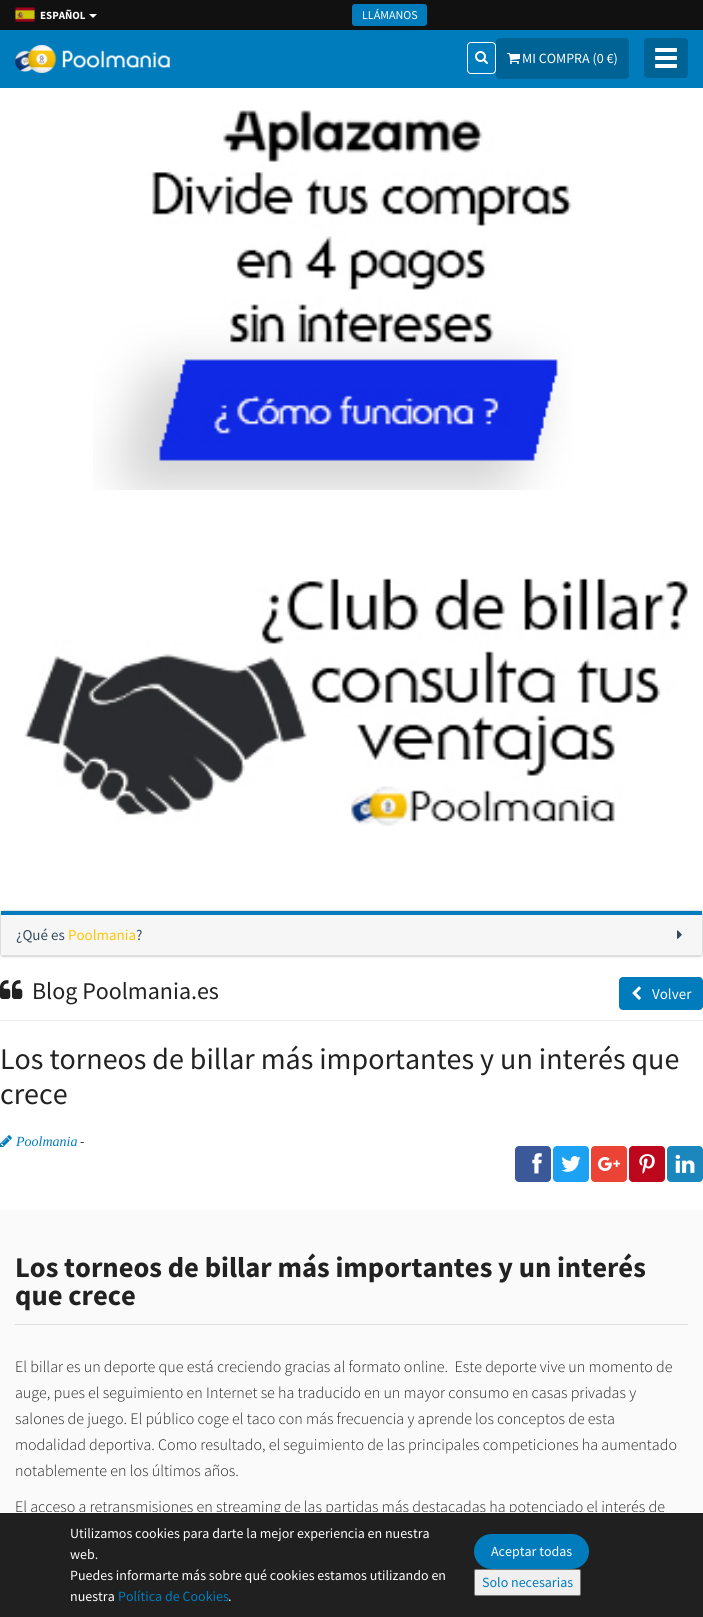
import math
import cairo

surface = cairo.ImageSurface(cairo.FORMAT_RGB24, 703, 1617)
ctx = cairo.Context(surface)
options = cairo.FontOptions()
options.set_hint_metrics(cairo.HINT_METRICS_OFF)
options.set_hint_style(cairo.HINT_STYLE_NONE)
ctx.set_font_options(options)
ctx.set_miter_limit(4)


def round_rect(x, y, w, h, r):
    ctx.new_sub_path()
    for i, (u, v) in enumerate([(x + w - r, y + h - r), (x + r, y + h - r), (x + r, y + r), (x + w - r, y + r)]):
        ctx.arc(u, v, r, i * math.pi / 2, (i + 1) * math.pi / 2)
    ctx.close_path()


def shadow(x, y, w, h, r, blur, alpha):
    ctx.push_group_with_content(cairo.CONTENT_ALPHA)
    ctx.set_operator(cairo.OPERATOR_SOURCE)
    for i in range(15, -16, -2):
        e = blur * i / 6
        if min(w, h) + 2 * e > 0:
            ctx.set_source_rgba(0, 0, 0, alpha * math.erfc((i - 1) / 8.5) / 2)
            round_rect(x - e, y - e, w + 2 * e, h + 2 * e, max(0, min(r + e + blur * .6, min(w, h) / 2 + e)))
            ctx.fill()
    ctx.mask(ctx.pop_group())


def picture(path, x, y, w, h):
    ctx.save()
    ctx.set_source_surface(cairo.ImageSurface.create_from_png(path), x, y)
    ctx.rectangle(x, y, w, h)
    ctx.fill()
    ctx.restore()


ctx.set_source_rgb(1, 1, 1)
ctx.paint()
ctx.set_source_rgb(0, 0.486, 0.737)
ctx.rectangle(0, 30, 703, 58)
ctx.fill()
ctx.set_source_rgb(0.067, 0.067, 0.067)
ctx.rectangle(0, 0, 703, 30)
ctx.fill()
picture("img1.png", 15, 7, 20, 15)
ctx.select_font_face("Source Sans Pro", cairo.FONT_SLANT_NORMAL, cairo.FONT_WEIGHT_BOLD)
ctx.set_font_size(11)
ctx.set_source_rgb(1, 1, 1)
ctx.move_to(40, 19)
ctx.show_text("ESPAÑOL")
ctx.new_path()
ctx.move_to(89, 14)
ctx.line_to(97, 14)
ctx.line_to(93, 18)
ctx.close_path()
ctx.fill()
ctx.set_source_rgb(0, 0.486, 0.737)
round_rect(352, 4, 75, 22, 3)
ctx.fill()
ctx.select_font_face("Source Sans Pro")
ctx.set_font_size(12)
ctx.set_source_rgb(1, 1, 1)
ctx.move_to(362, 19)
ctx.show_text("LLÁMANOS")
picture("img2.png", 15, 45, 155, 28)
round_rect(467.5, 42.5, 28, 31, 3.5)
ctx.set_line_width(1)
ctx.stroke()
picture("img3.png", 475, 51, 13, 13)
ctx.set_source_rgb(0, 0.388, 0.588)
round_rect(496, 38, 133, 41, 4)
ctx.fill()
picture("img4.png", 507, 53, 13, 11)
ctx.set_font_size(14)
ctx.set_source_rgb(1, 1, 1)
ctx.move_to(522, 63)
ctx.show_text("MI COMPRA (0 €)")
ctx.set_source_rgb(0, 0.388, 0.588)
round_rect(644, 38, 44, 40, 4)
ctx.fill()
ctx.set_source_rgb(1, 1, 1)
round_rect(655, 48, 22, 4, 1)
ctx.fill()
round_rect(655, 56, 22, 4, 1)
ctx.fill()
round_rect(655, 64, 22, 4, 1)
ctx.fill()
picture("img5.png", 93, 110, 479, 380)
picture("img6.png", 24, 578, 664, 248)
ctx.set_source_rgb(0, 0, 0)
shadow(0, 911, 703, 47, 4, 0.5, 0.05)
round_rect(0.5, 910.5, 702, 46, 3.5)
ctx.set_source_rgb(0.867, 0.867, 0.867)
ctx.stroke()
ctx.set_source_rgb(0.961, 0.961, 0.961)
ctx.rectangle(1, 915, 701, 40)
ctx.fill()
ctx.set_source_rgb(0, 0.486, 0.737)
ctx.rectangle(1, 911, 701, 4)
ctx.fill()
ctx.set_source_rgb(0.867, 0.867, 0.867)
ctx.rectangle(1, 955, 701, 1)
ctx.fill()
ctx.set_font_size(15)
ctx.set_source_rgb(0.204, 0.286, 0.369)
ctx.move_to(16, 940)
ctx.show_text("¿Qué es")
ctx.set_source_rgb(1, 0.776, 0)
ctx.move_to(68, 940)
ctx.show_text("Poolmania")
ctx.set_source_rgb(0.204, 0.286, 0.369)
ctx.move_to(136, 940)
ctx.show_text("?")
picture("img7.png", 677, 930, 5, 9)
picture("img8.png", 0, 980, 23, 19)
ctx.set_font_size(24)
ctx.set_source_rgb(0.133, 0.133, 0.133)
ctx.move_to(32, 999)
ctx.show_text("Blog Poolmania.es")
ctx.set_source_rgb(0, 0.486, 0.737)
round_rect(619, 977, 84, 33, 4)
ctx.fill()
picture("img9.png", 632, 986, 9, 14)
ctx.set_font_size(15)
ctx.set_source_rgb(1, 1, 1)
ctx.move_to(652, 999)
ctx.show_text("Volver")
ctx.set_source_rgb(0.933, 0.933, 0.933)
ctx.rectangle(0, 1020, 703, 1)
ctx.fill()
ctx.set_font_size(30)
ctx.set_source_rgb(0.133, 0.133, 0.133)
ctx.move_to(0, 1069)
ctx.show_text("Los torneos de billar más importantes y un interés que")
ctx.move_to(0, 1104)
ctx.show_text("crece")
picture("img10.png", 0, 1135, 12, 12)
ctx.select_font_face("Liberation Serif", cairo.FONT_SLANT_ITALIC)
ctx.set_font_size(14)
ctx.set_source_rgb(0, 0.486, 0.737)
ctx.move_to(16, 1146)
ctx.show_text("Poolmania")
ctx.select_font_face("Source Sans Pro")
ctx.set_source_rgb(0.133, 0.133, 0.133)
ctx.move_to(80, 1146)
ctx.show_text("-")
ctx.set_source_rgb(0.231, 0.349, 0.596)
round_rect(515, 1146, 36, 36, 4)
ctx.fill()
picture("img11.png", 532, 1153, 10, 21)
ctx.set_source_rgb(0.114, 0.631, 0.949)
round_rect(553, 1146, 36, 36, 4)
ctx.fill()
picture("img12.png", 561, 1156, 20, 16)
ctx.set_source_rgb(0.918, 0.263, 0.208)
round_rect(591, 1146, 36, 36, 4)
ctx.fill()
picture("img13.png", 598, 1157, 22, 14)
ctx.set_source_rgb(0.741, 0.031, 0.11)
round_rect(629, 1146, 36, 36, 4)
ctx.fill()
picture("img14.png", 639, 1154, 16, 20)
ctx.set_source_rgb(0.11, 0.529, 0.741)
round_rect(667, 1146, 36, 36, 4)
ctx.fill()
picture("img15.png", 675, 1154, 20, 19)
ctx.set_source_rgb(0.98, 0.98, 0.98)
ctx.rectangle(0, 1210, 703, 302)
ctx.fill()
ctx.set_source_rgb(0.867, 0.867, 0.867)
ctx.rectangle(15, 1324, 673, 1)
ctx.fill()
ctx.select_font_face("Source Sans Pro", cairo.FONT_SLANT_NORMAL, cairo.FONT_WEIGHT_BOLD)
ctx.set_font_size(28.6)
ctx.set_source_rgb(0.133, 0.133, 0.133)
ctx.move_to(15, 1277)
ctx.show_text("Los torneos de billar más importantes y un interés")
ctx.move_to(15, 1305)
ctx.show_text("que crece")
ctx.select_font_face("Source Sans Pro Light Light")
ctx.set_font_size(16)
ctx.move_to(15, 1372)
ctx.show_text("El billar es un deporte que está creciendo gracias al formato online.  Este deporte vive un momento de")
ctx.move_to(15, 1398)
ctx.show_text("auge, pues el seguimiento en Internet se ha traducido en un mayor consumo en casas privadas y")
ctx.move_to(15, 1424)
ctx.show_text("salones de juego. El público coge el taco con más frecuencia y aprende los conceptos de esta")
ctx.move_to(15, 1450)
ctx.show_text("modalidad deportiva. Como resultado, el seguimiento de las principales competiciones ha aumentado")
ctx.move_to(15, 1476)
ctx.show_text("notablemente en los últimos años.")
ctx.move_to(15, 1512)
ctx.show_text("El acceso a retransmisiones en streaming de las partidas más destacadas ha potenciado el interés de")
ctx.set_source_rgb(0.125, 0.125, 0.125)
ctx.rectangle(0, 1513, 703, 104)
ctx.fill()
ctx.set_source_rgb(1, 1, 1)
ctx.rectangle(25, 1512, 638, 1)
ctx.fill()
ctx.select_font_face("Source Sans Pro")
ctx.set_font_size(14)
ctx.move_to(70, 1538)
ctx.show_text("Utilizamos cookies para darte la mejor experiencia en nuestra")
ctx.move_to(70, 1559)
ctx.show_text("web.")
ctx.move_to(70, 1580)
ctx.show_text("Puedes informarte más sobre qué cookies estamos utilizando en")
ctx.move_to(70, 1601)
ctx.show_text("nuestra")
ctx.set_source_rgb(0, 0.486, 0.737)
ctx.move_to(118, 1601)
ctx.show_text("Política de Cookies")
ctx.set_source_rgb(1, 1, 1)
ctx.move_to(228, 1601)
ctx.show_text(".")
ctx.set_source_rgb(0, 0.486, 0.737)
round_rect(474, 1534, 115, 35, 17.5)
ctx.fill()
ctx.set_source_rgb(1, 1, 1)
ctx.move_to(491, 1556)
ctx.show_text("Aceptar todas")
ctx.set_source_rgb(0.937, 0.937, 0.937)
round_rect(474.5, 1569.5, 106, 26, 1.5)
ctx.fill_preserve()
ctx.set_source_rgb(0.463, 0.463, 0.463)
ctx.stroke()
ctx.set_source_rgb(0, 0.486, 0.737)
ctx.move_to(482, 1587)
ctx.show_text("Solo necesarias")
surface.write_to_png("page.png")
